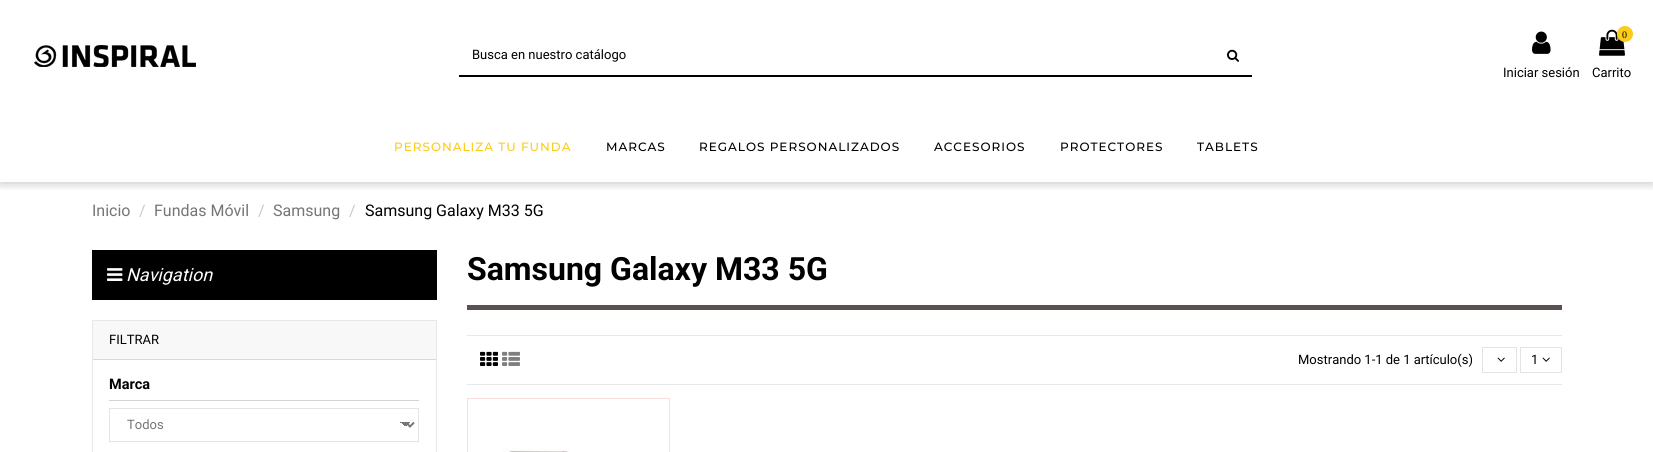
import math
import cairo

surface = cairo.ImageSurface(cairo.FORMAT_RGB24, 1653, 452)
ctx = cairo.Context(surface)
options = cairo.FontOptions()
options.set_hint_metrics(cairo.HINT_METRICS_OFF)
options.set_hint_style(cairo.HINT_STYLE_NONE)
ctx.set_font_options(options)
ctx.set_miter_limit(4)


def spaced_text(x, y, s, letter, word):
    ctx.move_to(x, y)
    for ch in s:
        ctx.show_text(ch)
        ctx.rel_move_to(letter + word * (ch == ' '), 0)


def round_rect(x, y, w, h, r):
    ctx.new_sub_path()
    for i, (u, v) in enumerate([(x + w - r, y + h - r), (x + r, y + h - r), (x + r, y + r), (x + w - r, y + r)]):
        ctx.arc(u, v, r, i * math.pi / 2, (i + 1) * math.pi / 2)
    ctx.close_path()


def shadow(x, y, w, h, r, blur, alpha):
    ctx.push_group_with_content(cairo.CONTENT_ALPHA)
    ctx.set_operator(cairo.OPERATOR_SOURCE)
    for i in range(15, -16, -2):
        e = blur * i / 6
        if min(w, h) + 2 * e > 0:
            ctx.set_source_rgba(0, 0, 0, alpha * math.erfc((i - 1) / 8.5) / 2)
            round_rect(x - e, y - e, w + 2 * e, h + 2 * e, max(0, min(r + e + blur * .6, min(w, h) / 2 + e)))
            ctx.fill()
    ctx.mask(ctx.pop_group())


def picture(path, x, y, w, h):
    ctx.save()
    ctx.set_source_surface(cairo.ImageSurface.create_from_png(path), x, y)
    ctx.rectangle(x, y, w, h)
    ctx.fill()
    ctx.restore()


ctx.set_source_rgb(1, 1, 1)
ctx.paint()
ctx.save()
ctx.rectangle(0, 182, 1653, 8)
ctx.clip()
ctx.set_source_rgb(0.239, 0.224, 0.224)
shadow(0, 1, 1653, 182, 0, 5.5, 0.17)
shadow(0, 1, 1653, 182, 0, 5.5, 0.17)
ctx.restore()
picture("img1.png", 34, 45, 162, 22)
ctx.set_source_rgb(0, 0, 0)
ctx.rectangle(459, 75, 793, 2)
ctx.fill()
ctx.select_font_face("Roboto")
ctx.set_font_size(13)
ctx.move_to(472, 59)
ctx.show_text("Busca en nuestro catálogo")
picture("img2.png", 1227, 49, 12, 13)
picture("img3.png", 1532, 31, 19, 23)
ctx.move_to(1503, 77)
ctx.show_text("Iniciar sesión")
picture("img4.png", 1599, 29, 26, 27)
ctx.set_source_rgb(0.984, 0.8, 0.098)
ctx.arc(1625, 34, 8, 0, 2 * math.pi)
ctx.fill()
ctx.select_font_face("Liberation Serif")
ctx.set_font_size(10)
ctx.set_source_rgb(0, 0, 0)
ctx.move_to(1622, 38)
ctx.show_text("0")
ctx.select_font_face("Roboto")
ctx.set_font_size(13)
ctx.move_to(1592, 77)
ctx.show_text("Carrito")
ctx.select_font_face("Montserrat Medium")
ctx.set_font_size(12)
ctx.set_source_rgb(0.984, 0.8, 0.098)
spaced_text(394, 151, "PERSONALIZA TU FUNDA", 1, 0)
ctx.set_source_rgb(0, 0, 0)
spaced_text(606, 151, "MARCAS", 1, 0)
spaced_text(699, 151, "REGALOS PERSONALIZADOS", 1, 0)
spaced_text(934, 151, "ACCESORIOS", 1, 0)
spaced_text(1060, 151, "PROTECTORES", 1, 0)
spaced_text(1197, 151, "TABLETS", 1, 0)
ctx.select_font_face("Roboto")
ctx.set_font_size(16)
ctx.set_source_rgb(0.459, 0.459, 0.459)
ctx.move_to(92, 216)
ctx.show_text("Inicio")
ctx.set_source_rgb(0.784, 0.784, 0.784)
ctx.move_to(139, 216)
ctx.show_text("/")
ctx.set_source_rgb(0.459, 0.459, 0.459)
ctx.move_to(154, 216)
ctx.show_text("Fundas Móvil")
ctx.set_source_rgb(0.784, 0.784, 0.784)
ctx.move_to(258, 216)
ctx.show_text("/")
ctx.set_source_rgb(0.459, 0.459, 0.459)
ctx.move_to(273, 216)
ctx.show_text("Samsung")
ctx.set_source_rgb(0.784, 0.784, 0.784)
ctx.move_to(349, 216)
ctx.show_text("/")
ctx.set_source_rgb(0, 0, 0)
ctx.move_to(365, 216)
ctx.show_text("Samsung Galaxy M33 5G")
ctx.rectangle(92, 250, 345, 50)
ctx.fill()
picture("img5.png", 107, 268, 16, 13)
ctx.select_font_face("Roboto", cairo.FONT_SLANT_ITALIC)
ctx.set_font_size(18)
ctx.set_source_rgb(1, 1, 1)
ctx.move_to(126, 281)
ctx.show_text("Navigation")
ctx.rectangle(92.5, 320.5, 344, 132)
ctx.set_source_rgb(0.91, 0.91, 0.91)
ctx.set_line_width(1)
ctx.stroke()
ctx.set_source_rgb(0.969, 0.969, 0.969)
ctx.rectangle(93, 321, 343, 38)
ctx.fill()
ctx.set_source_rgb(0.847, 0.847, 0.847)
ctx.rectangle(93, 359, 343, 1)
ctx.fill()
ctx.select_font_face("Roboto")
ctx.set_font_size(13)
ctx.set_source_rgb(0, 0, 0)
ctx.move_to(109, 344)
ctx.show_text("FILTRAR")
ctx.set_source_rgb(0.839, 0.831, 0.831)
ctx.rectangle(109, 400, 310, 1)
ctx.fill()
ctx.select_font_face("Roboto", cairo.FONT_SLANT_NORMAL, cairo.FONT_WEIGHT_BOLD)
ctx.set_font_size(14.5)
ctx.set_source_rgb(0, 0, 0)
ctx.move_to(109, 389)
ctx.show_text("Marca")
gradient = cairo.LinearGradient(405, 422, 410, 427)
gradient.add_color_stop_rgba(0.5, 0.467, 0.467, 0.467, 1)
gradient.add_color_stop_rgba(0.5, 1, 1, 1, 1)
ctx.set_source(gradient)
ctx.rectangle(405, 422, 5, 4)
ctx.fill()
gradient = cairo.LinearGradient(400, 427, 405, 422)
gradient.add_color_stop_rgba(0.5, 1, 1, 1, 1)
gradient.add_color_stop_rgba(0.5, 0.467, 0.467, 0.467, 1)
ctx.set_source(gradient)
ctx.rectangle(400, 422, 5, 4)
ctx.fill()
ctx.rectangle(109.5, 408.5, 309, 33)
ctx.set_source_rgb(0.89, 0.89, 0.89)
ctx.stroke()
ctx.new_path()
ctx.move_to(406, 422.5)
ctx.line_to(410, 426.5)
ctx.line_to(414, 422.5)
ctx.set_source_rgb(0.467, 0.467, 0.467)
ctx.set_line_width(2)
ctx.stroke()
ctx.select_font_face("Roboto")
ctx.set_font_size(13)
ctx.set_source_rgb(0.459, 0.459, 0.459)
ctx.move_to(127, 429)
ctx.show_text("Todos")
ctx.set_source_rgb(0.349, 0.314, 0.314)
ctx.rectangle(467, 305, 1095, 5)
ctx.fill()
ctx.select_font_face("Roboto", cairo.FONT_SLANT_NORMAL, cairo.FONT_WEIGHT_BOLD)
ctx.set_font_size(32)
ctx.set_source_rgb(0, 0, 0)
ctx.move_to(467, 280)
ctx.show_text("Samsung Galaxy M33 5G")
ctx.set_source_rgb(0.91, 0.91, 0.91)
ctx.rectangle(467, 335, 1095, 1)
ctx.fill()
ctx.rectangle(467, 384, 1095, 1)
ctx.fill()
picture("img6.png", 480, 351, 18, 15)
picture("img7.png", 502, 351, 18, 15)
ctx.select_font_face("Roboto")
ctx.set_font_size(13)
ctx.set_source_rgb(0, 0, 0)
ctx.move_to(1298, 364)
ctx.show_text("Mostrando 1-1 de 1 artículo(s)")
ctx.rectangle(1482.5, 347.5, 34, 25)
ctx.set_source_rgb(0.89, 0.89, 0.89)
ctx.set_line_width(1)
ctx.stroke()
picture("img8.png", 1497, 357, 8, 5)
ctx.rectangle(1520.5, 347.5, 41, 25)
ctx.stroke()
ctx.set_source_rgb(0, 0, 0)
ctx.move_to(1531, 364)
ctx.show_text("1")
picture("img8.png", 1542, 357, 8, 5)
ctx.rectangle(467.5, 398.5, 202, 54)
ctx.set_source_rgb(0.98, 0.867, 0.867)
ctx.stroke()
picture("img9.png", 503, 448, 66, 4)
surface.write_to_png("page.png")
